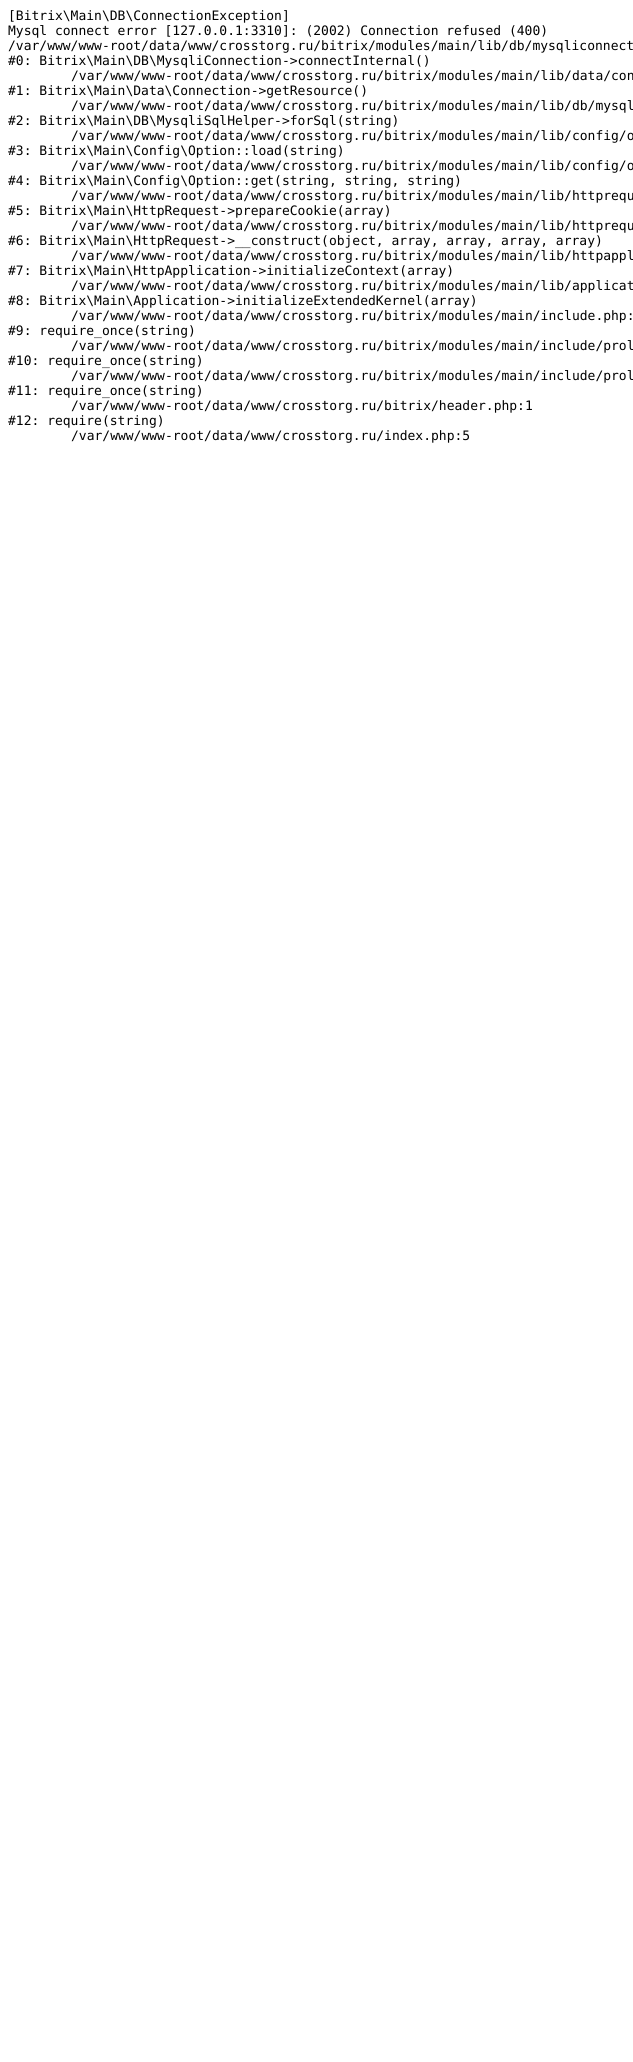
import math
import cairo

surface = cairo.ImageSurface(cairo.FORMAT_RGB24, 633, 2062)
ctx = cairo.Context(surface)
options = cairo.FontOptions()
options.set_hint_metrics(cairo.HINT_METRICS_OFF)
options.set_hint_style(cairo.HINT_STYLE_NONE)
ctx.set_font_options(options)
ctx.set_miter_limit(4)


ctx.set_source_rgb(1, 1, 1)
ctx.paint()
ctx.select_font_face("DejaVu Sans Mono")
ctx.set_font_size(13)
ctx.set_source_rgb(0, 0, 0)
ctx.move_to(8, 20)
ctx.show_text("[Bitrix\\Main\\DB\\ConnectionException]")
ctx.move_to(8, 35)
ctx.show_text("Mysql connect error [127.0.0.1:3310]: (2002) Connection refused (400)")
ctx.move_to(8, 50)
ctx.show_text("/var/www/www-root/data/www/crosstorg.ru/bitrix/modules/main/lib/db/mysqliconnect")
ctx.move_to(8, 65)
ctx.show_text("#0: Bitrix\\Main\\DB\\MysqliConnection->connectInternal()")
ctx.move_to(71, 80)
ctx.show_text("/var/www/www-root/data/www/crosstorg.ru/bitrix/modules/main/lib/data/con")
ctx.move_to(8, 95)
ctx.show_text("#1: Bitrix\\Main\\Data\\Connection->getResource()")
ctx.move_to(71, 110)
ctx.show_text("/var/www/www-root/data/www/crosstorg.ru/bitrix/modules/main/lib/db/mysql")
ctx.move_to(8, 125)
ctx.show_text("#2: Bitrix\\Main\\DB\\MysqliSqlHelper->forSql(string)")
ctx.move_to(71, 140)
ctx.show_text("/var/www/www-root/data/www/crosstorg.ru/bitrix/modules/main/lib/config/o")
ctx.move_to(8, 155)
ctx.show_text("#3: Bitrix\\Main\\Config\\Option::load(string)")
ctx.move_to(71, 170)
ctx.show_text("/var/www/www-root/data/www/crosstorg.ru/bitrix/modules/main/lib/config/o")
ctx.move_to(8, 185)
ctx.show_text("#4: Bitrix\\Main\\Config\\Option::get(string, string, string)")
ctx.move_to(71, 200)
ctx.show_text("/var/www/www-root/data/www/crosstorg.ru/bitrix/modules/main/lib/httprequ")
ctx.move_to(8, 215)
ctx.show_text("#5: Bitrix\\Main\\HttpRequest->prepareCookie(array)")
ctx.move_to(71, 230)
ctx.show_text("/var/www/www-root/data/www/crosstorg.ru/bitrix/modules/main/lib/httprequ")
ctx.move_to(8, 245)
ctx.show_text("#6: Bitrix\\Main\\HttpRequest->__construct(object, array, array, array, array)")
ctx.move_to(71, 260)
ctx.show_text("/var/www/www-root/data/www/crosstorg.ru/bitrix/modules/main/lib/httpappl")
ctx.move_to(8, 275)
ctx.show_text("#7: Bitrix\\Main\\HttpApplication->initializeContext(array)")
ctx.move_to(71, 290)
ctx.show_text("/var/www/www-root/data/www/crosstorg.ru/bitrix/modules/main/lib/applicat")
ctx.move_to(8, 305)
ctx.show_text("#8: Bitrix\\Main\\Application->initializeExtendedKernel(array)")
ctx.move_to(71, 320)
ctx.show_text("/var/www/www-root/data/www/crosstorg.ru/bitrix/modules/main/include.php:")
ctx.move_to(8, 335)
ctx.show_text("#9: require_once(string)")
ctx.move_to(71, 350)
ctx.show_text("/var/www/www-root/data/www/crosstorg.ru/bitrix/modules/main/include/prol")
ctx.move_to(8, 365)
ctx.show_text("#10: require_once(string)")
ctx.move_to(71, 380)
ctx.show_text("/var/www/www-root/data/www/crosstorg.ru/bitrix/modules/main/include/prol")
ctx.move_to(8, 395)
ctx.show_text("#11: require_once(string)")
ctx.move_to(71, 410)
ctx.show_text("/var/www/www-root/data/www/crosstorg.ru/bitrix/header.php:1")
ctx.move_to(8, 425)
ctx.show_text("#12: require(string)")
ctx.move_to(71, 440)
ctx.show_text("/var/www/www-root/data/www/crosstorg.ru/index.php:5")
surface.write_to_png("page.png")
